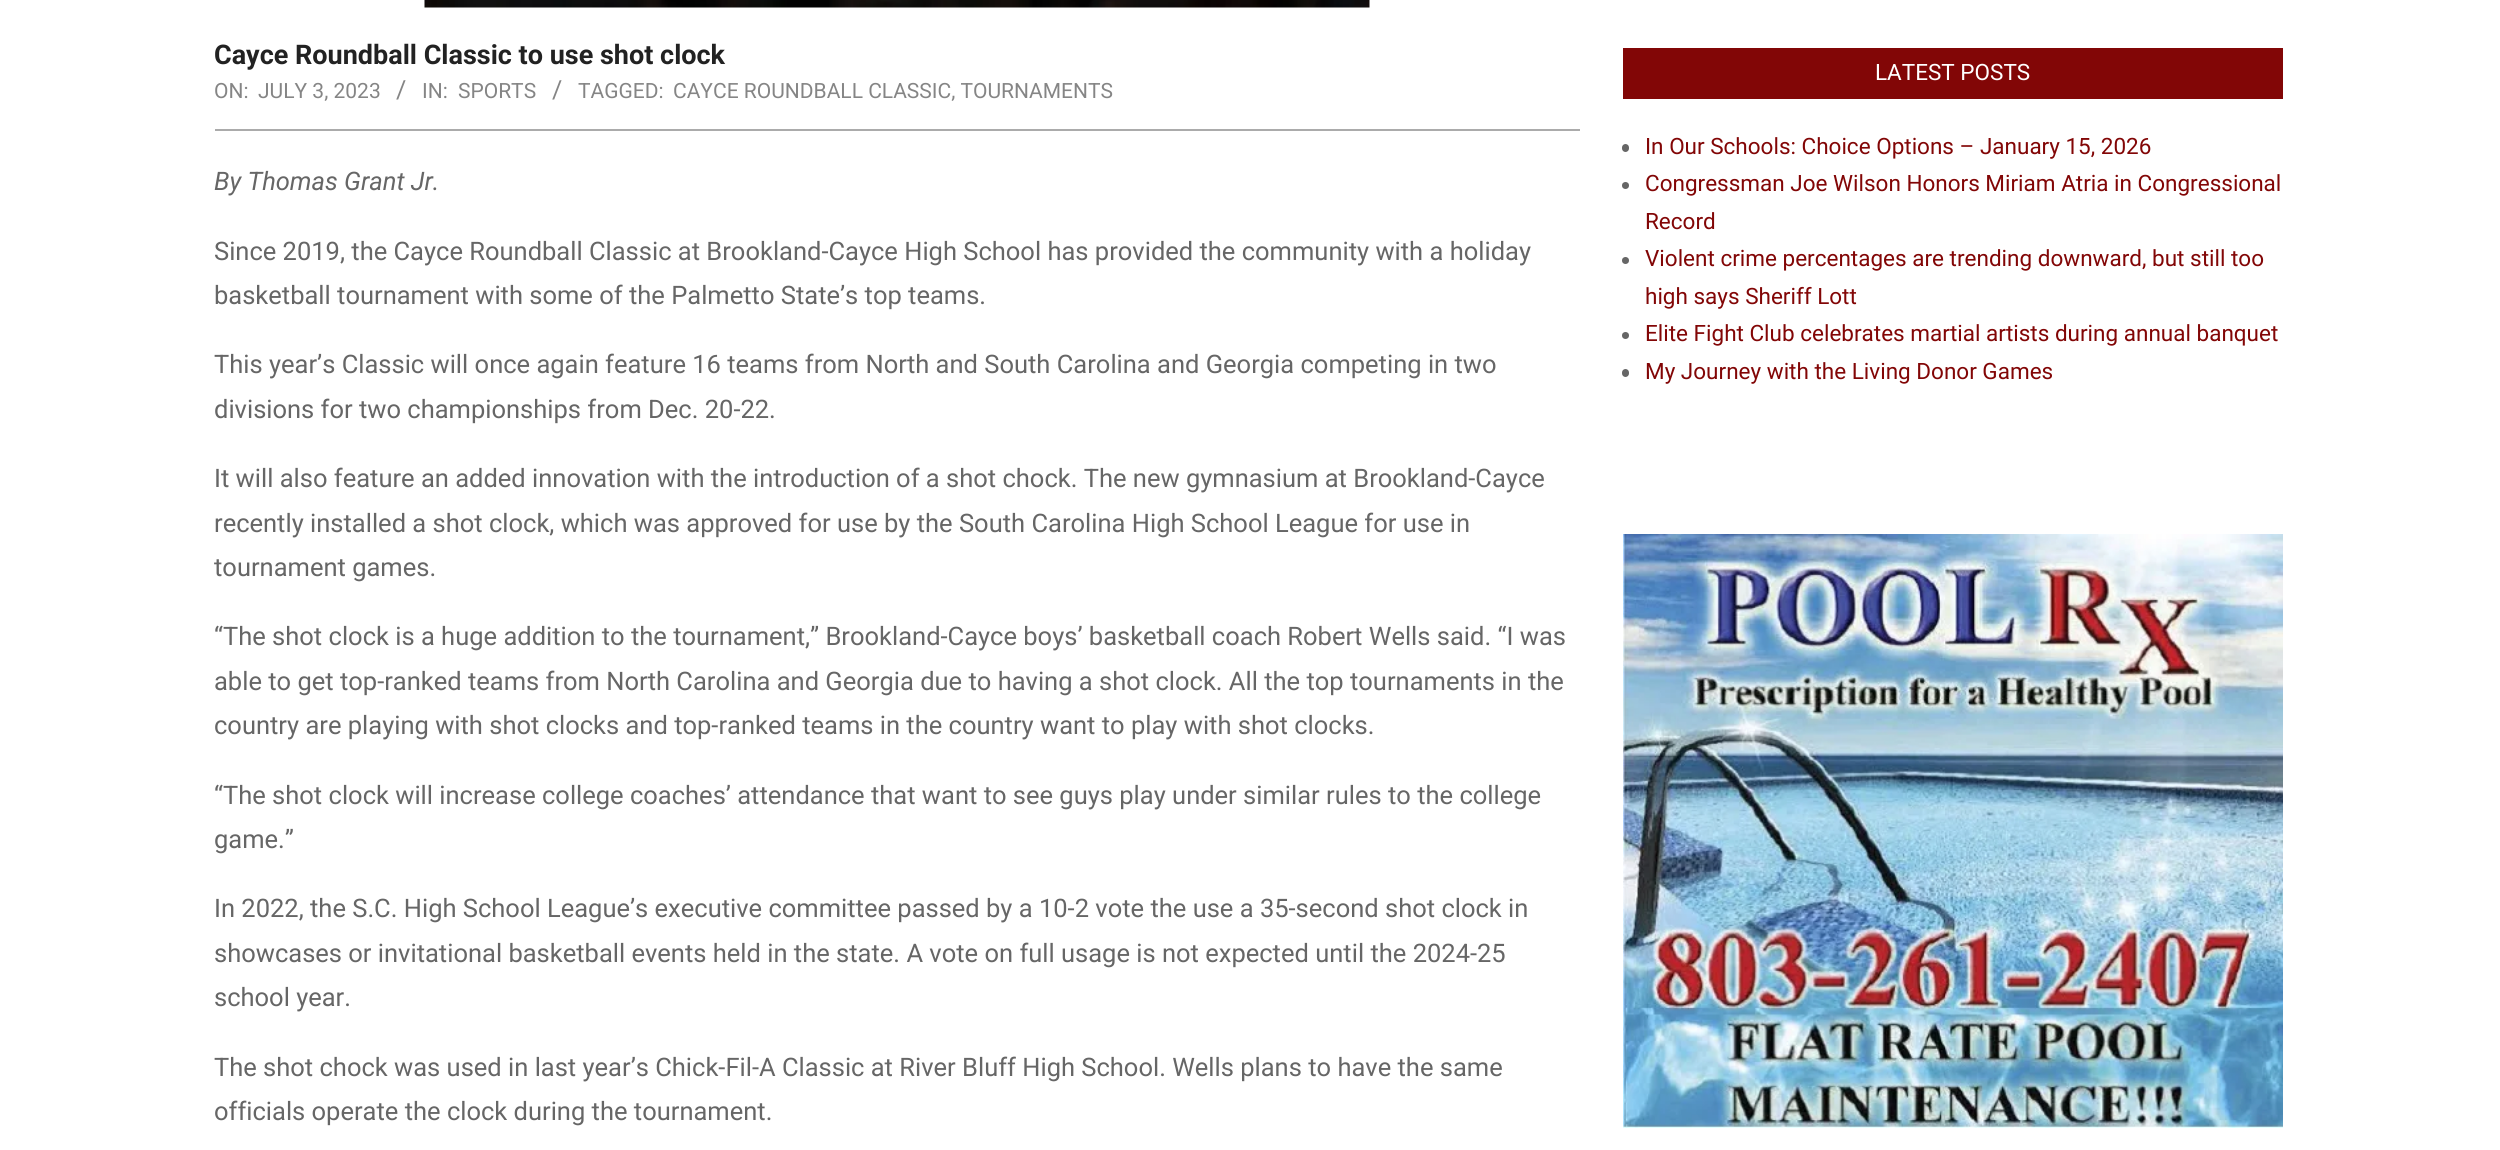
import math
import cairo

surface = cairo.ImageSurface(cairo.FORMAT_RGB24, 2500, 1150)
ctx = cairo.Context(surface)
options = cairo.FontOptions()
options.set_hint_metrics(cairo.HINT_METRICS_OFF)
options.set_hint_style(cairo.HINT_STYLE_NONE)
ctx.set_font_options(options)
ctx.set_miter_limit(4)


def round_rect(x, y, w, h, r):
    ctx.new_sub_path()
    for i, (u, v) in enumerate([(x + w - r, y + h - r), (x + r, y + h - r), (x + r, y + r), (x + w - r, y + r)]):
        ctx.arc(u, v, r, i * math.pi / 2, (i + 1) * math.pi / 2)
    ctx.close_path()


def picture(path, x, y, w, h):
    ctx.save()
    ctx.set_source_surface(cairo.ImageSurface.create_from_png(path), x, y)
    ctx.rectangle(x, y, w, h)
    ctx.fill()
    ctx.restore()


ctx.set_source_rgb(1, 1, 1)
ctx.paint()
picture("img1.png", 424, 0, 946, 8)
ctx.set_source_rgb(0.671, 0.671, 0.671)
ctx.rectangle(215, 129, 1365, 2)
ctx.fill()
ctx.select_font_face("Roboto", cairo.FONT_SLANT_NORMAL, cairo.FONT_WEIGHT_BOLD)
ctx.set_font_size(27)
ctx.set_source_rgb(0.133, 0.133, 0.133)
ctx.move_to(214, 64)
ctx.show_text("Cayce Roundball Classic to use shot clock")
ctx.select_font_face("Roboto")
ctx.set_font_size(21)
ctx.set_source_rgb(0.522, 0.522, 0.522)
ctx.move_to(214, 98)
ctx.show_text("ON:")
ctx.move_to(258, 98)
ctx.show_text("JULY 3, 2023")
ctx.set_font_size(25)
ctx.move_to(396, 98)
ctx.show_text("/")
ctx.set_font_size(21)
ctx.move_to(422, 98)
ctx.show_text("IN:")
ctx.move_to(458, 98)
ctx.show_text("SPORTS")
ctx.set_font_size(25)
ctx.move_to(552, 98)
ctx.show_text("/")
ctx.set_font_size(21)
ctx.move_to(578, 98)
ctx.show_text("TAGGED:")
ctx.move_to(673, 98)
ctx.show_text("CAYCE ROUNDBALL CLASSIC, TOURNAMENTS")
ctx.select_font_face("Roboto", cairo.FONT_SLANT_ITALIC)
ctx.set_font_size(25.5)
ctx.set_source_rgb(0.4, 0.4, 0.4)
ctx.move_to(214, 190)
ctx.show_text("By Thomas Grant Jr.")
ctx.select_font_face("Roboto")
ctx.move_to(214, 260)
ctx.show_text("Since 2019, the Cayce Roundball Classic at Brookland-Cayce High School has provided the community with a holiday")
ctx.move_to(214, 304)
ctx.show_text("basketball tournament with some of the Palmetto State’s top teams.")
ctx.move_to(214, 373)
ctx.show_text("This year’s Classic will once again feature 16 teams from North and South Carolina and Georgia competing in two")
ctx.move_to(214, 418)
ctx.show_text("divisions for two championships from Dec. 20-22.")
ctx.move_to(214, 487)
ctx.show_text("It will also feature an added innovation with the introduction of a shot chock. The new gymnasium at Brookland-Cayce")
ctx.move_to(214, 532)
ctx.show_text("recently installed a shot clock, which was approved for use by the South Carolina High School League for use in")
ctx.move_to(214, 576)
ctx.show_text("tournament games.")
ctx.move_to(214, 645)
ctx.show_text("“The shot clock is a huge addition to the tournament,” Brookland-Cayce boys’ basketball coach Robert Wells said. “I was")
ctx.move_to(214, 690)
ctx.show_text("able to get top-ranked teams from North Carolina and Georgia due to having a shot clock. All the top tournaments in the")
ctx.move_to(214, 734)
ctx.show_text("country are playing with shot clocks and top-ranked teams in the country want to play with shot clocks.")
ctx.move_to(214, 804)
ctx.show_text("“The shot clock will increase college coaches’ attendance that want to see guys play under similar rules to the college")
ctx.move_to(214, 848)
ctx.show_text("game.”")
ctx.move_to(214, 917)
ctx.show_text("In 2022, the S.C. High School League’s executive committee passed by a 10-2 vote the use a 35-second shot clock in")
ctx.move_to(214, 962)
ctx.show_text("showcases or invitational basketball events held in the state. A vote on full usage is not expected until the 2024-25")
ctx.move_to(214, 1006)
ctx.show_text("school year.")
ctx.move_to(214, 1076)
ctx.show_text("The shot chock was used in last year’s Chick-Fil-A Classic at River Bluff High School. Wells plans to have the same")
ctx.move_to(214, 1120)
ctx.show_text("officials operate the clock during the tournament.")
ctx.set_source_rgb(0.51, 0.024, 0.024)
ctx.rectangle(1623, 48, 660, 51)
ctx.fill()
ctx.set_font_size(22.5)
ctx.set_source_rgb(1, 1, 1)
ctx.move_to(1875, 80)
ctx.show_text("LATEST POSTS")
ctx.set_source_rgb(0.4, 0.4, 0.4)
round_rect(1622, 144, 7, 8, 3.5)
ctx.fill()
ctx.set_source_rgb(0.51, 0.024, 0.024)
ctx.move_to(1645, 154)
ctx.show_text("In Our Schools: Choice Options – January 15, 2026")
ctx.set_source_rgb(0.4, 0.4, 0.4)
ctx.new_path()
ctx.arc(1625.5, 185.5, 3.5, 0, 2 * math.pi)
ctx.fill()
ctx.set_source_rgb(0.51, 0.024, 0.024)
ctx.move_to(1645, 191)
ctx.show_text("Congressman Joe Wilson Honors Miriam Atria in Congressional")
ctx.move_to(1645, 229)
ctx.show_text("Record")
ctx.set_source_rgb(0.4, 0.4, 0.4)
ctx.new_path()
ctx.arc(1625.5, 260.5, 3.5, 0, 2 * math.pi)
ctx.fill()
ctx.set_source_rgb(0.51, 0.024, 0.024)
ctx.move_to(1645, 266)
ctx.show_text("Violent crime percentages are trending downward, but still too")
ctx.move_to(1645, 304)
ctx.show_text("high says Sheriff Lott")
ctx.set_source_rgb(0.4, 0.4, 0.4)
ctx.new_path()
ctx.arc(1625.5, 335.5, 3.5, 0, 2 * math.pi)
ctx.fill()
ctx.set_source_rgb(0.51, 0.024, 0.024)
ctx.move_to(1645, 341)
ctx.show_text("Elite Fight Club celebrates martial artists during annual banquet")
ctx.set_source_rgb(0.4, 0.4, 0.4)
round_rect(1622, 369, 7, 8, 3.5)
ctx.fill()
ctx.set_source_rgb(0.51, 0.024, 0.024)
ctx.move_to(1645, 379)
ctx.show_text("My Journey with the Living Donor Games")
picture("img2.png", 1623, 534, 660, 594)
surface.write_to_png("page.png")
